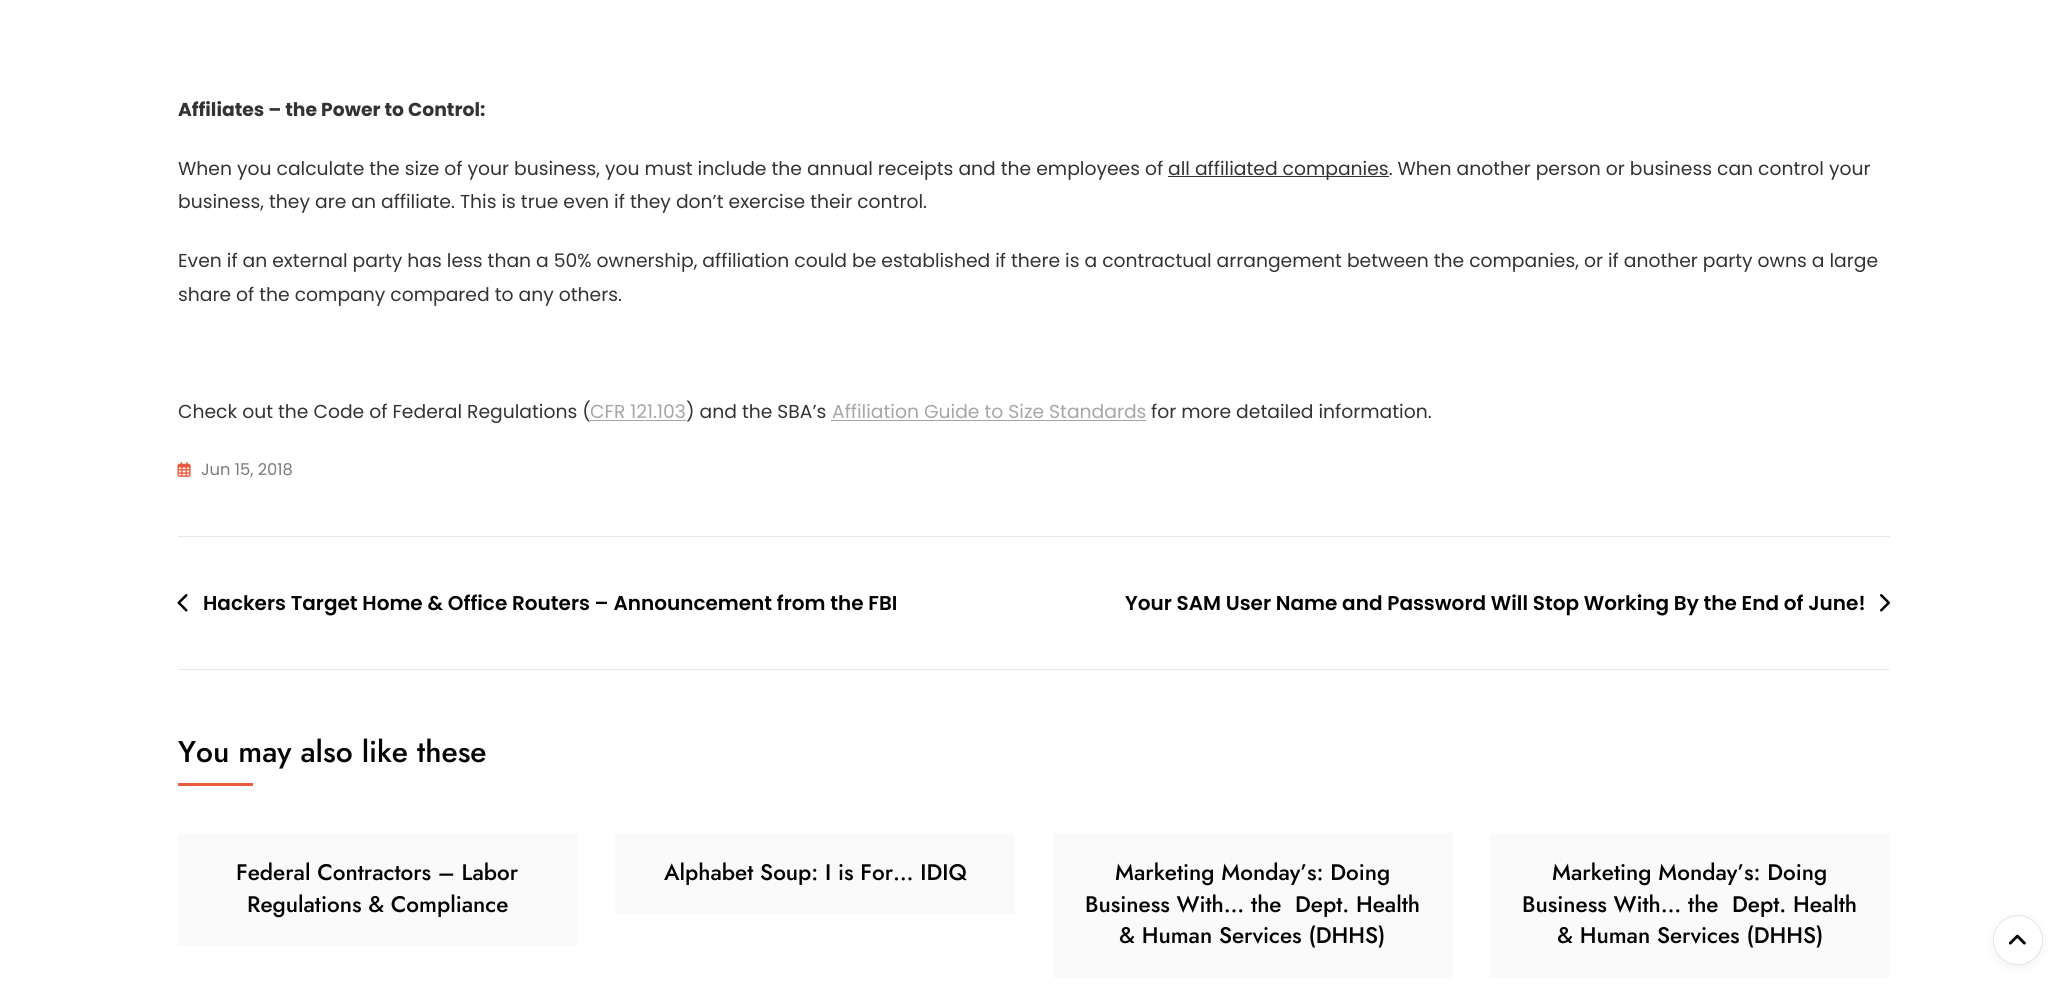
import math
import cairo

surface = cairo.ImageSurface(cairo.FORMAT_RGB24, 2067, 990)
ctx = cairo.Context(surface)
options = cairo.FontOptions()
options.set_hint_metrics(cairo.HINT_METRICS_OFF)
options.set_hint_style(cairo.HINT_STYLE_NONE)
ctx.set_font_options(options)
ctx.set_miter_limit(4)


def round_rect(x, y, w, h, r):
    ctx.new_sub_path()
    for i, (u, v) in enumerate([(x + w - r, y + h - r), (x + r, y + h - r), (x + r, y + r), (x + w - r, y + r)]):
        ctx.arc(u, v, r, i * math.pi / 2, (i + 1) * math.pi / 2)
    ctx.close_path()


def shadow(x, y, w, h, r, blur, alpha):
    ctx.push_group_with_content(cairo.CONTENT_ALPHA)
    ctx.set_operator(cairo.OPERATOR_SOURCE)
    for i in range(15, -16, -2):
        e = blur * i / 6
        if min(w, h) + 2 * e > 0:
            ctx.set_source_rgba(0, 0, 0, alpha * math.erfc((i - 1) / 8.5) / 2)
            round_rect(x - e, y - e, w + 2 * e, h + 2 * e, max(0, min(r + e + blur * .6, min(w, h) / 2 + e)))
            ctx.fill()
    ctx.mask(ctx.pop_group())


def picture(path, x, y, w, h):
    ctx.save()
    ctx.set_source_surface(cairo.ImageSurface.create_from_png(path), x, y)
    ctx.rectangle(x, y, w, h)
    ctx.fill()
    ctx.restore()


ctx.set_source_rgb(1, 1, 1)
ctx.paint()
ctx.select_font_face("Poppins", cairo.FONT_SLANT_NORMAL, cairo.FONT_WEIGHT_BOLD)
ctx.set_font_size(18.75)
ctx.set_source_rgb(0.2, 0.2, 0.2)
ctx.move_to(178, 116)
ctx.show_text("Affiliates – the Power to Control:")
ctx.select_font_face("Poppins")
ctx.move_to(178, 175)
ctx.show_text("When you calculate the size of your business, you must include the annual receipts and the employees of")
ctx.rectangle(1168, 176, 221, 1)
ctx.fill()
ctx.move_to(1168, 175)
ctx.show_text("all affiliated companies. When another person or business can control your")
ctx.move_to(178, 208)
ctx.show_text("business, they are an affiliate. This is true even if they don’t exercise their control.")
ctx.move_to(178, 267)
ctx.show_text("Even if an external party has less than a 50% ownership, affiliation could be established if there is a contractual arrangement between the companies, or if another party owns a large")
ctx.move_to(178, 301)
ctx.show_text("share of the company compared to any others.")
ctx.move_to(178, 418)
ctx.show_text("Check out the Code of Federal Regulations (")
ctx.set_source_rgb(0.651, 0.651, 0.651)
ctx.move_to(590, 418)
ctx.show_text("CFR 121.103")
ctx.rectangle(590, 420, 96, 1)
ctx.fill()
ctx.set_source_rgb(0.2, 0.2, 0.2)
ctx.move_to(686, 418)
ctx.show_text(") and the SBA’s")
ctx.set_source_rgb(0.651, 0.651, 0.651)
ctx.move_to(832, 418)
ctx.show_text("Affiliation Guide to Size Standards")
ctx.rectangle(831, 420, 315, 1)
ctx.fill()
ctx.set_source_rgb(0.2, 0.2, 0.2)
ctx.move_to(1151, 418)
ctx.show_text("for more detailed information.")
picture("img1.png", 177, 461, 14, 16)
ctx.set_font_size(16.25)
ctx.set_source_rgb(0.478, 0.478, 0.478)
ctx.move_to(201, 475)
ctx.show_text("Jun 15, 2018")
ctx.set_source_rgb(0.902, 0.902, 0.902)
ctx.rectangle(178, 536, 1712, 1)
ctx.fill()
ctx.rectangle(178, 669, 1712, 1)
ctx.fill()
picture("img2.png", 177, 594, 11, 18)
ctx.select_font_face("Poppins SemiBold")
ctx.set_font_size(20)
ctx.set_source_rgb(0.012, 0.012, 0.012)
ctx.move_to(203, 610)
ctx.show_text("Hackers Target Home & Office Routers – Announcement from the FBI")
ctx.move_to(1125, 610)
ctx.show_text("Your SAM User Name and Password Will Stop Working By the End of June!")
picture("img3.png", 1880, 594, 10, 18)
ctx.select_font_face("Jost Medium")
ctx.set_font_size(30)
ctx.move_to(178, 762)
ctx.show_text("You may also like these")
ctx.set_source_rgb(0.922, 0.353, 0.243)
ctx.rectangle(178, 783, 75, 3)
ctx.fill()
ctx.set_source_rgb(0.98, 0.98, 0.98)
ctx.rectangle(178, 833, 400, 113)
ctx.fill()
ctx.set_font_size(22.5)
ctx.set_source_rgb(0.012, 0.012, 0.012)
ctx.move_to(236, 880)
ctx.show_text("Federal Contractors – Labor")
ctx.move_to(247, 912)
ctx.show_text("Regulations & Compliance")
ctx.set_source_rgb(0.98, 0.98, 0.98)
ctx.rectangle(615, 833, 400, 81)
ctx.fill()
ctx.set_source_rgb(0.012, 0.012, 0.012)
ctx.move_to(664, 880)
ctx.show_text("Alphabet Soup: I is For… IDIQ")
ctx.set_source_rgb(0.98, 0.98, 0.98)
ctx.rectangle(1053, 833, 400, 145)
ctx.fill()
ctx.set_source_rgb(0.012, 0.012, 0.012)
ctx.move_to(1115, 880)
ctx.show_text("Marketing Monday’s: Doing")
ctx.move_to(1085, 912)
ctx.show_text("Business With… the  Dept. Health")
ctx.move_to(1119, 943)
ctx.show_text("& Human Services (DHHS)")
ctx.set_source_rgb(0.98, 0.98, 0.98)
ctx.rectangle(1490, 833, 400, 145)
ctx.fill()
ctx.set_source_rgb(0.012, 0.012, 0.012)
ctx.move_to(1552, 880)
ctx.show_text("Marketing Monday’s: Doing")
ctx.move_to(1522, 912)
ctx.show_text("Business With… the  Dept. Health")
ctx.move_to(1557, 943)
ctx.show_text("& Human Services (DHHS)")
ctx.set_source_rgb(0, 0, 0)
shadow(1993, 918, 50, 50, 25, 5, 0.05)
ctx.set_source_rgb(1, 1, 1)
ctx.arc(2018, 940, 24.5, 0, 2 * math.pi)
ctx.fill_preserve()
ctx.set_source_rgb(0.898, 0.898, 0.898)
ctx.set_line_width(1)
ctx.stroke()
picture("img4.png", 2008, 934, 18, 11)
surface.write_to_png("page.png")
